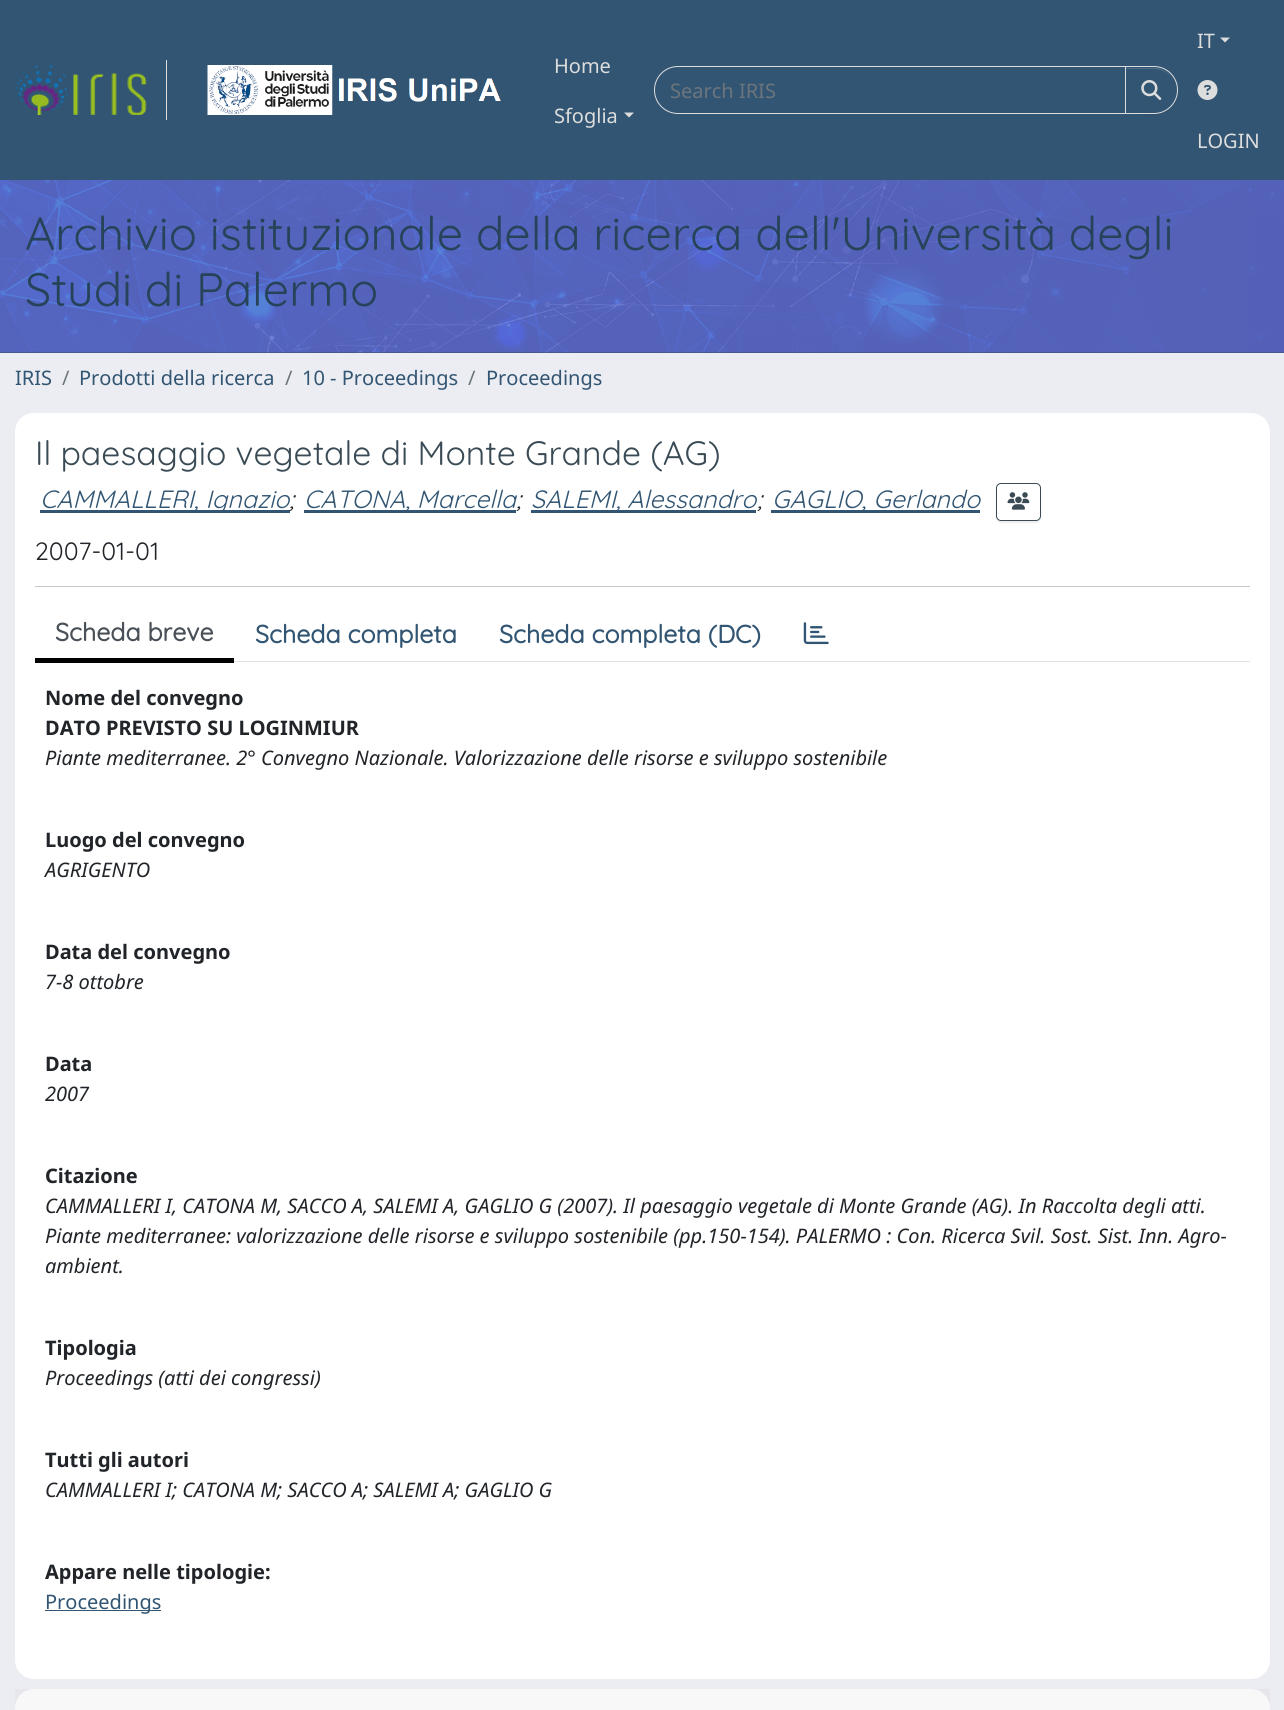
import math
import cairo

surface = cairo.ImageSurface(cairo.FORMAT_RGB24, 1284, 1710)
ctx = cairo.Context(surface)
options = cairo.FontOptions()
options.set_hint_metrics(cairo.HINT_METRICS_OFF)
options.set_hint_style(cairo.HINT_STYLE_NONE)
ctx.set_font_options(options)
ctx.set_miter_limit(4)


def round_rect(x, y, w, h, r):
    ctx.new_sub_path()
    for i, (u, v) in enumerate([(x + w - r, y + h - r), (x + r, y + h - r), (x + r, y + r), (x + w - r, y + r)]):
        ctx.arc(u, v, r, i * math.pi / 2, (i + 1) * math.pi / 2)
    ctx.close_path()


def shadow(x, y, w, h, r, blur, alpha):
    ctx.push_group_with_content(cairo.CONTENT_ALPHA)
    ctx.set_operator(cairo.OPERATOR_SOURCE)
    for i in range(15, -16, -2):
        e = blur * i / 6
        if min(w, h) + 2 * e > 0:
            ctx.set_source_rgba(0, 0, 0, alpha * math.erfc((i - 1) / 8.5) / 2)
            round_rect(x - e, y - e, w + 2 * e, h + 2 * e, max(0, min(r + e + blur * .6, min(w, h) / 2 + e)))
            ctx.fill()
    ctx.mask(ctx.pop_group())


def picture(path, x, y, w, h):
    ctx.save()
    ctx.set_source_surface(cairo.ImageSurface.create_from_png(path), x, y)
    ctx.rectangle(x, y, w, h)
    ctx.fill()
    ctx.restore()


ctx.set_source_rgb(0.925, 0.929, 0.949)
ctx.paint()
ctx.set_source_rgb(0.192, 0.333, 0.447)
ctx.rectangle(0, 0, 1284, 180)
ctx.fill()
ctx.set_source_rgb(0.867, 0.867, 0.867)
ctx.rectangle(166, 60, 1, 60)
ctx.fill()
picture("img1.png", 15, 65, 132, 50)
picture("img2.png", 207, 65, 294, 50)
ctx.select_font_face("Noto Sans")
ctx.set_font_size(20)
ctx.move_to(554, 73)
ctx.show_text("Home")
ctx.move_to(554, 123)
ctx.show_text("Sfoglia")
ctx.new_path()
ctx.move_to(624, 112.5)
ctx.line_to(634, 112.5)
ctx.line_to(629, 117.5)
ctx.close_path()
ctx.fill()
ctx.new_path()
ctx.move_to(678, 66.5)
ctx.line_to(1125.5, 66.5)
ctx.line_to(1125.5, 113.5)
ctx.line_to(678, 113.5)
ctx.curve_to(665, 113.5, 654.5, 103, 654.5, 90)
ctx.curve_to(654.5, 77, 665, 66.5, 678, 66.5)
ctx.close_path()
ctx.set_line_width(1)
ctx.stroke()
ctx.set_source_rgb(0.424, 0.459, 0.49)
ctx.move_to(670, 98)
ctx.show_text("Search IRIS")
ctx.set_source_rgb(0, 0, 0)
shadow(1125, 68, 53, 47, 23.5, 0.5, 0.07)
ctx.set_source_rgb(0.192, 0.333, 0.447)
ctx.new_path()
ctx.move_to(1125, 66)
ctx.line_to(1154, 66)
ctx.curve_to(1167.5, 66, 1178, 76.5, 1178, 90)
ctx.curve_to(1178, 103.5, 1167.5, 114, 1154, 114)
ctx.line_to(1125, 114)
ctx.close_path()
ctx.fill()
ctx.set_source_rgb(0.314, 0.435, 0.529)
ctx.new_path()
ctx.move_to(1126, 69)
ctx.line_to(1154, 69)
ctx.curve_to(1166, 69, 1176, 79, 1176, 91)
ctx.curve_to(1176, 80, 1168, 71, 1158, 68)
ctx.line_to(1126, 68)
ctx.close_path()
ctx.fill()
ctx.new_path()
ctx.move_to(1125.5, 66.5)
ctx.line_to(1154, 66.5)
ctx.curve_to(1167, 66.5, 1177.5, 77, 1177.5, 90)
ctx.curve_to(1177.5, 103, 1167, 113.5, 1154, 113.5)
ctx.line_to(1125.5, 113.5)
ctx.close_path()
ctx.set_source_rgb(0.867, 0.867, 0.867)
ctx.stroke()
picture("img3.png", 1141, 80, 21, 20)
ctx.move_to(1197, 48)
ctx.show_text("IT")
ctx.new_path()
ctx.move_to(1220, 37.5)
ctx.line_to(1230, 37.5)
ctx.line_to(1225, 42.5)
ctx.close_path()
ctx.fill()
picture("img4.png", 1197, 80, 21, 20)
ctx.move_to(1197, 148)
ctx.show_text("LOGIN")
ctx.set_source_rgb(0.227, 0.294, 0.333)
ctx.rectangle(0, 180, 1284, 173)
ctx.fill()
picture("img5.png", 0, 180, 1284, 173)
ctx.select_font_face("Quicksand Light")
ctx.set_font_size(46.75)
ctx.set_source_rgb(0.153, 0.263, 0.353)
ctx.move_to(25, 250)
ctx.show_text("Archivio istituzionale della ricerca dell'Università degli")
ctx.move_to(25, 306)
ctx.show_text("Studi di Palermo")
ctx.select_font_face("Noto Sans")
ctx.set_font_size(20)
ctx.set_source_rgb(0.192, 0.333, 0.447)
ctx.move_to(15, 385)
ctx.show_text("IRIS")
ctx.set_source_rgb(0.424, 0.459, 0.49)
ctx.move_to(62, 385)
ctx.show_text("/")
ctx.set_source_rgb(0.192, 0.333, 0.447)
ctx.move_to(79, 385)
ctx.show_text("Prodotti della ricerca")
ctx.set_source_rgb(0.424, 0.459, 0.49)
ctx.move_to(285, 385)
ctx.show_text("/")
ctx.set_source_rgb(0.192, 0.333, 0.447)
ctx.move_to(302, 385)
ctx.show_text("10 - Proceedings")
ctx.set_source_rgb(0.424, 0.459, 0.49)
ctx.move_to(468, 385)
ctx.show_text("/")
ctx.set_source_rgb(0.192, 0.333, 0.447)
ctx.move_to(486, 385)
ctx.show_text("Proceedings")
ctx.set_source_rgb(1, 1, 1)
round_rect(15, 413, 1255, 1266, 19)
ctx.fill()
ctx.select_font_face("Quicksand Light")
ctx.set_font_size(33.75)
ctx.set_source_rgb(0.227, 0.294, 0.333)
ctx.move_to(35, 465)
ctx.show_text("Il paesaggio vegetale di Monte Grande (AG)")
ctx.set_source_rgb(0.192, 0.333, 0.447)
ctx.rectangle(40, 510, 250, 3)
ctx.fill()
ctx.select_font_face("Quicksand Light", cairo.FONT_SLANT_ITALIC)
ctx.set_font_size(25)
ctx.move_to(40, 508)
ctx.show_text("CAMMALLERI, Ignazio")
ctx.set_source_rgb(0.129, 0.145, 0.161)
ctx.move_to(289, 508)
ctx.show_text(";")
ctx.set_source_rgb(0.192, 0.333, 0.447)
ctx.rectangle(304, 510, 212, 3)
ctx.fill()
ctx.move_to(304, 508)
ctx.show_text("CATONA, Marcella")
ctx.set_source_rgb(0.129, 0.145, 0.161)
ctx.move_to(516, 508)
ctx.show_text(";")
ctx.set_source_rgb(0.192, 0.333, 0.447)
ctx.rectangle(531, 510, 225, 3)
ctx.fill()
ctx.move_to(531, 508)
ctx.show_text("SALEMI, Alessandro")
ctx.set_source_rgb(0.129, 0.145, 0.161)
ctx.move_to(757, 508)
ctx.show_text(";")
ctx.set_source_rgb(0.192, 0.333, 0.447)
ctx.rectangle(771, 510, 209, 3)
ctx.fill()
ctx.move_to(772, 508)
ctx.show_text("GAGLIO, Gerlando")
ctx.save()
ctx.set_fill_rule(cairo.FILL_RULE_EVEN_ODD)
ctx.new_path()
ctx.move_to(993, 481)
ctx.line_to(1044, 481)
ctx.line_to(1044, 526)
ctx.line_to(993, 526)
ctx.close_path()
ctx.move_to(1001, 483)
ctx.line_to(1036, 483)
ctx.curve_to(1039, 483, 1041, 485, 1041, 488)
ctx.line_to(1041, 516)
ctx.curve_to(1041, 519, 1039, 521, 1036, 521)
ctx.line_to(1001, 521)
ctx.curve_to(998, 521, 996, 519, 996, 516)
ctx.line_to(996, 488)
ctx.curve_to(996, 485, 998, 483, 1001, 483)
ctx.close_path()
ctx.clip()
ctx.set_source_rgb(0, 0, 0)
shadow(996, 484, 45, 39, 5, 0.5, 0.07)
ctx.restore()
round_rect(996.5, 483.5, 44, 37, 4.5)
ctx.set_source_rgb(0.227, 0.294, 0.333)
ctx.stroke()
picture("img6.png", 1007, 492, 23, 18)
ctx.select_font_face("Quicksand Light")
ctx.set_source_rgb(0.129, 0.145, 0.161)
ctx.move_to(35, 560)
ctx.show_text("2007-01-01")
ctx.set_source_rgb(0.784, 0.788, 0.792)
ctx.rectangle(35, 586, 1215, 1)
ctx.fill()
ctx.set_source_rgb(0.871, 0.886, 0.902)
ctx.rectangle(234, 661, 1016, 1)
ctx.fill()
ctx.set_source_rgb(0, 0, 0)
ctx.rectangle(35, 658, 199, 5)
ctx.fill()
ctx.select_font_face("Quicksand", cairo.FONT_SLANT_NORMAL, cairo.FONT_WEIGHT_BOLD)
ctx.set_source_rgb(0.286, 0.314, 0.341)
ctx.move_to(55, 641)
ctx.show_text("Scheda breve")
ctx.set_source_rgb(0.192, 0.333, 0.447)
ctx.move_to(255, 643)
ctx.show_text("Scheda completa")
ctx.move_to(499, 643)
ctx.show_text("Scheda completa (DC)")
picture("img7.png", 803, 622, 26, 23)
ctx.select_font_face("Noto Sans", cairo.FONT_SLANT_NORMAL, cairo.FONT_WEIGHT_BOLD)
ctx.set_font_size(20)
ctx.set_source_rgb(0.129, 0.145, 0.161)
ctx.move_to(45, 705)
ctx.show_text("Nome del convegno")
ctx.move_to(45, 735)
ctx.show_text("DATO PREVISTO SU LOGINMIUR")
ctx.select_font_face("Noto Sans", cairo.FONT_SLANT_ITALIC)
ctx.move_to(45, 765)
ctx.show_text("Piante mediterranee. 2° Convegno Nazionale. Valorizzazione delle risorse e sviluppo sostenibile")
ctx.select_font_face("Noto Sans", cairo.FONT_SLANT_NORMAL, cairo.FONT_WEIGHT_BOLD)
ctx.move_to(45, 847)
ctx.show_text("Luogo del convegno")
ctx.select_font_face("Noto Sans", cairo.FONT_SLANT_ITALIC)
ctx.move_to(45, 877)
ctx.show_text("AGRIGENTO")
ctx.select_font_face("Noto Sans", cairo.FONT_SLANT_NORMAL, cairo.FONT_WEIGHT_BOLD)
ctx.move_to(45, 959)
ctx.show_text("Data del convegno")
ctx.select_font_face("Noto Sans", cairo.FONT_SLANT_ITALIC)
ctx.move_to(45, 989)
ctx.show_text("7-8 ottobre")
ctx.select_font_face("Noto Sans", cairo.FONT_SLANT_NORMAL, cairo.FONT_WEIGHT_BOLD)
ctx.move_to(45, 1071)
ctx.show_text("Data")
ctx.select_font_face("Noto Sans", cairo.FONT_SLANT_ITALIC)
ctx.move_to(45, 1101)
ctx.show_text("2007")
ctx.select_font_face("Noto Sans", cairo.FONT_SLANT_NORMAL, cairo.FONT_WEIGHT_BOLD)
ctx.move_to(45, 1183)
ctx.show_text("Citazione")
ctx.select_font_face("Noto Sans", cairo.FONT_SLANT_ITALIC)
ctx.move_to(45, 1213)
ctx.show_text("CAMMALLERI I, CATONA M, SACCO A, SALEMI A, GAGLIO G (2007). Il paesaggio vegetale di Monte Grande (AG). In Raccolta degli atti.")
ctx.move_to(45, 1243)
ctx.show_text("Piante mediterranee: valorizzazione delle risorse e sviluppo sostenibile (pp.150-154). PALERMO : Con. Ricerca Svil. Sost. Sist. Inn. Agro-")
ctx.move_to(45, 1273)
ctx.show_text("ambient.")
ctx.select_font_face("Noto Sans", cairo.FONT_SLANT_NORMAL, cairo.FONT_WEIGHT_BOLD)
ctx.move_to(45, 1355)
ctx.show_text("Tipologia")
ctx.select_font_face("Noto Sans", cairo.FONT_SLANT_ITALIC)
ctx.move_to(45, 1385)
ctx.show_text("Proceedings (atti dei congressi)")
ctx.select_font_face("Noto Sans", cairo.FONT_SLANT_NORMAL, cairo.FONT_WEIGHT_BOLD)
ctx.move_to(45, 1467)
ctx.show_text("Tutti gli autori")
ctx.select_font_face("Noto Sans", cairo.FONT_SLANT_ITALIC)
ctx.move_to(45, 1497)
ctx.show_text("CAMMALLERI I; CATONA M; SACCO A; SALEMI A; GAGLIO G")
ctx.select_font_face("Noto Sans", cairo.FONT_SLANT_NORMAL, cairo.FONT_WEIGHT_BOLD)
ctx.move_to(45, 1579)
ctx.show_text("Appare nelle tipologie:")
ctx.set_source_rgb(0.192, 0.333, 0.447)
ctx.rectangle(45, 1610, 116, 1)
ctx.fill()
ctx.select_font_face("Noto Sans")
ctx.move_to(45, 1609)
ctx.show_text("Proceedings")
ctx.set_source_rgb(1, 1, 1)
round_rect(15, 1689, 1255, 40, 19)
ctx.fill()
ctx.set_source_rgba(0, 0, 0, 0.03)
ctx.rectangle(15, 1689, 1255, 21)
ctx.fill()
surface.write_to_png("page.png")
